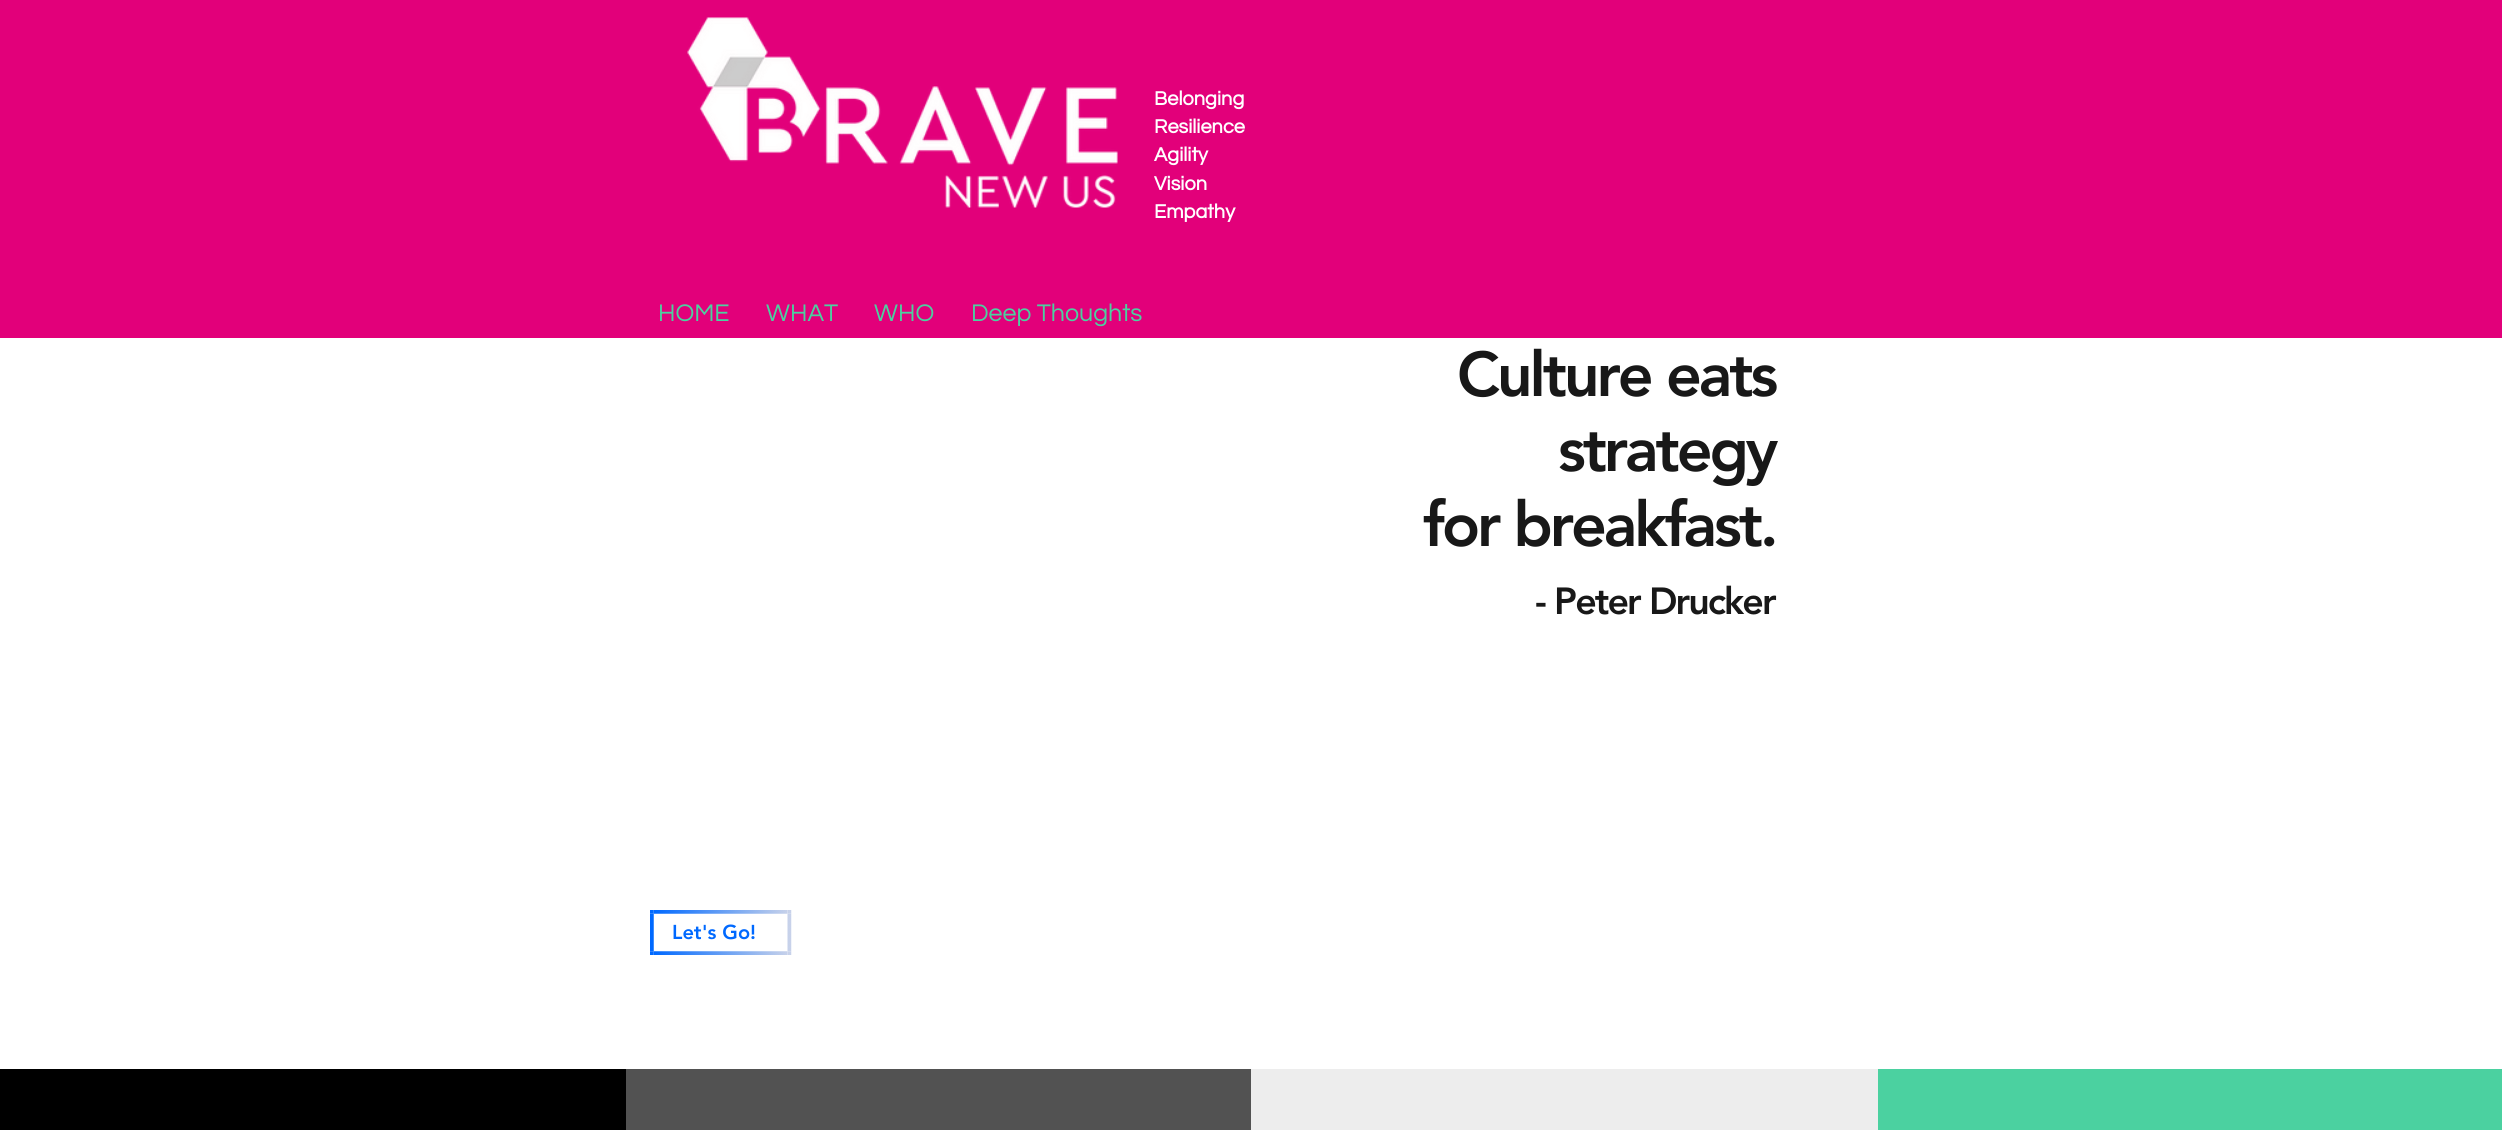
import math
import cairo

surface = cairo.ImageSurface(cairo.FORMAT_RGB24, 2502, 1130)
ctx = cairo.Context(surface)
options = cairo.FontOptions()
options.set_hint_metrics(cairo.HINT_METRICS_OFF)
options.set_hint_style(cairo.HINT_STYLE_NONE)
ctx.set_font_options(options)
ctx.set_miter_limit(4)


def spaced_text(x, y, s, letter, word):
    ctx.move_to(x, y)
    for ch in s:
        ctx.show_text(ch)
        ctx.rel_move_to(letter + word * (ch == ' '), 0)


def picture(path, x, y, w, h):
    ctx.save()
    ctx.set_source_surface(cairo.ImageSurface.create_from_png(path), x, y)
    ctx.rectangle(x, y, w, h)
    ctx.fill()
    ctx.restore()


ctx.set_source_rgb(1, 1, 1)
ctx.paint()
ctx.set_source_rgb(0.886, 0, 0.478)
ctx.rectangle(0, 0, 2502, 338)
ctx.fill()
picture("img1.png", 687, 17, 431, 191)
ctx.select_font_face("Questrial", cairo.FONT_SLANT_NORMAL, cairo.FONT_WEIGHT_BOLD)
ctx.set_font_size(20)
ctx.set_source_rgb(1, 1, 1)
ctx.move_to(1154, 105)
ctx.show_text("Belonging")
ctx.move_to(1154, 133)
ctx.show_text("Resilience")
ctx.move_to(1154, 161)
ctx.show_text("Agility")
ctx.move_to(1154, 190)
ctx.show_text("Vision")
ctx.move_to(1154, 218)
ctx.show_text("Empathy")
ctx.select_font_face("Questrial")
ctx.set_font_size(25)
ctx.set_source_rgb(0.294, 0.82, 0.627)
ctx.move_to(658, 321)
ctx.show_text("HOME")
ctx.move_to(766, 321)
ctx.show_text("WHAT")
ctx.move_to(874, 321)
ctx.show_text("WHO")
ctx.move_to(971, 321)
ctx.show_text("Deep Thoughts")
ctx.select_font_face("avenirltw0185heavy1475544 Black")
ctx.set_font_size(62.5)
ctx.set_source_rgb(0.094, 0.094, 0.094)
spaced_text(1457, 396, "Culture eats", -3.1, 0)
spaced_text(1558, 471, "strategy", -3.1, 0)
spaced_text(1423, 546, "for breakfast.", -3.1, 0)
ctx.set_font_size(37.5)
spaced_text(1535, 614, "- Peter Drucker", -1.9, 0)
picture("img2.png", 650, 910, 142, 45)
ctx.set_font_size(20)
ctx.set_source_rgb(0, 0.412, 1)
ctx.move_to(672, 939)
ctx.show_text("Let's Go!")
ctx.set_source_rgb(0, 0, 0)
ctx.rectangle(0, 1069, 626, 61)
ctx.fill()
ctx.set_source_rgb(0.322, 0.322, 0.322)
ctx.rectangle(626, 1069, 625, 61)
ctx.fill()
ctx.set_source_rgb(0.929, 0.929, 0.929)
ctx.rectangle(1251, 1069, 627, 61)
ctx.fill()
ctx.set_source_rgb(0.294, 0.82, 0.627)
ctx.rectangle(1878, 1069, 624, 61)
ctx.fill()
surface.write_to_png("page.png")
